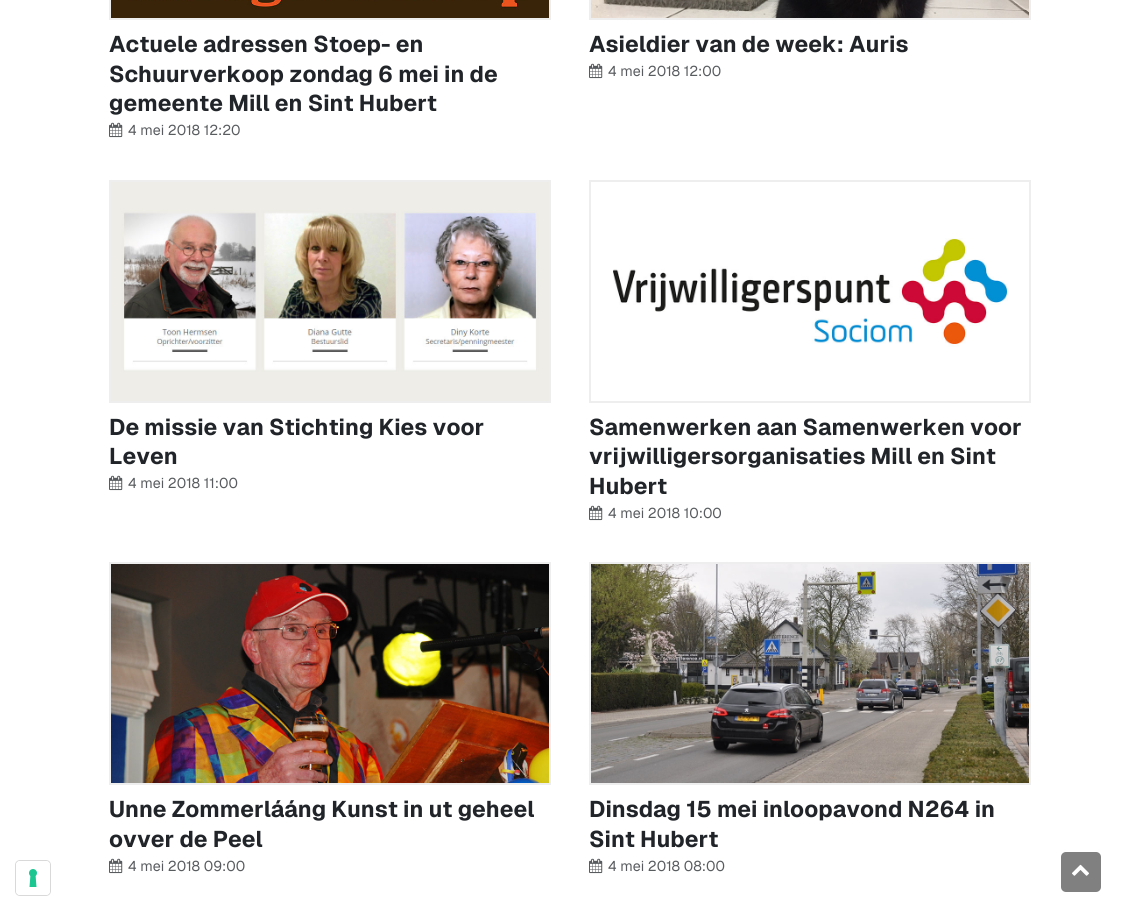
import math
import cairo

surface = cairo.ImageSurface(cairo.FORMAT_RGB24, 1139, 911)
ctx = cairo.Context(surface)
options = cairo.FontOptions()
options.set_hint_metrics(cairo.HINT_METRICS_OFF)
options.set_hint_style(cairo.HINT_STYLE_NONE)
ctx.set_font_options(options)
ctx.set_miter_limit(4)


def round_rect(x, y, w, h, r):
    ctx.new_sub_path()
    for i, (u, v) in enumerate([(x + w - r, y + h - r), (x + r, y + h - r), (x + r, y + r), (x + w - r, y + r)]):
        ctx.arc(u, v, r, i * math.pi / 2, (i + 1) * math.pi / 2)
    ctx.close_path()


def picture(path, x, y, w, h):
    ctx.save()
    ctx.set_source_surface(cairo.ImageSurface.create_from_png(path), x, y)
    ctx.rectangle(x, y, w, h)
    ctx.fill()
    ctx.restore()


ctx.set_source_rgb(1, 1, 1)
ctx.paint()
ctx.rectangle(110, -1, 440, 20)
ctx.set_source_rgb(0.933, 0.933, 0.933)
ctx.stroke()
picture("img1.png", 111, 0, 438, 18)
ctx.select_font_face("Geist", cairo.FONT_SLANT_NORMAL, cairo.FONT_WEIGHT_BOLD)
ctx.set_font_size(22.75)
ctx.set_source_rgb(0.129, 0.145, 0.161)
ctx.move_to(109, 52)
ctx.show_text("Actuele adressen Stoep- en")
ctx.move_to(109, 82)
ctx.show_text("Schuurverkoop zondag 6 mei in de")
ctx.move_to(109, 111)
ctx.show_text("gemeente Mill en Sint Hubert")
picture("img2.png", 109, 122, 14, 16)
ctx.select_font_face("Geist")
ctx.set_font_size(14.25)
ctx.set_source_rgb(0.349, 0.361, 0.373)
ctx.move_to(128, 135)
ctx.show_text("4 mei 2018 12:20")
ctx.rectangle(590, -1, 440, 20)
ctx.set_source_rgb(0.933, 0.933, 0.933)
ctx.stroke()
picture("img3.png", 591, 0, 438, 18)
ctx.select_font_face("Geist", cairo.FONT_SLANT_NORMAL, cairo.FONT_WEIGHT_BOLD)
ctx.set_font_size(22.75)
ctx.set_source_rgb(0.129, 0.145, 0.161)
ctx.move_to(589, 52)
ctx.show_text("Asieldier van de week: Auris")
picture("img2.png", 589, 63, 14, 16)
ctx.select_font_face("Geist")
ctx.set_font_size(14.25)
ctx.set_source_rgb(0.349, 0.361, 0.373)
ctx.move_to(608, 76)
ctx.show_text("4 mei 2018 12:00")
ctx.rectangle(110, 181, 440, 221)
ctx.set_source_rgb(0.933, 0.933, 0.933)
ctx.stroke()
picture("img4.png", 111, 182, 438, 219)
ctx.select_font_face("Geist", cairo.FONT_SLANT_NORMAL, cairo.FONT_WEIGHT_BOLD)
ctx.set_font_size(22.75)
ctx.set_source_rgb(0.129, 0.145, 0.161)
ctx.move_to(109, 435)
ctx.show_text("De missie van Stichting Kies voor")
ctx.move_to(109, 464)
ctx.show_text("Leven")
picture("img2.png", 109, 475, 14, 16)
ctx.select_font_face("Geist")
ctx.set_font_size(14.25)
ctx.set_source_rgb(0.349, 0.361, 0.373)
ctx.move_to(128, 488)
ctx.show_text("4 mei 2018 11:00")
ctx.rectangle(590, 181, 440, 221)
ctx.set_source_rgb(0.933, 0.933, 0.933)
ctx.stroke()
picture("img5.png", 613, 238, 395, 109)
ctx.select_font_face("Geist", cairo.FONT_SLANT_NORMAL, cairo.FONT_WEIGHT_BOLD)
ctx.set_font_size(22.75)
ctx.set_source_rgb(0.129, 0.145, 0.161)
ctx.move_to(589, 435)
ctx.show_text("Samenwerken aan Samenwerken voor")
ctx.move_to(589, 464)
ctx.show_text("vrijwilligersorganisaties Mill en Sint")
ctx.move_to(589, 494)
ctx.show_text("Hubert")
picture("img2.png", 589, 505, 14, 16)
ctx.select_font_face("Geist")
ctx.set_font_size(14.25)
ctx.set_source_rgb(0.349, 0.361, 0.373)
ctx.move_to(608, 518)
ctx.show_text("4 mei 2018 10:00")
ctx.rectangle(110, 563, 440, 221)
ctx.set_source_rgb(0.933, 0.933, 0.933)
ctx.stroke()
picture("img6.png", 111, 564, 438, 219)
ctx.select_font_face("Geist", cairo.FONT_SLANT_NORMAL, cairo.FONT_WEIGHT_BOLD)
ctx.set_font_size(22.75)
ctx.set_source_rgb(0.129, 0.145, 0.161)
ctx.move_to(109, 817)
ctx.show_text("Unne Zommerlááng Kunst in ut geheel")
ctx.move_to(109, 847)
ctx.show_text("ovver de Peel")
picture("img2.png", 109, 858, 14, 16)
ctx.select_font_face("Geist")
ctx.set_font_size(14.25)
ctx.set_source_rgb(0.349, 0.361, 0.373)
ctx.move_to(128, 871)
ctx.show_text("4 mei 2018 09:00")
ctx.rectangle(590, 563, 440, 221)
ctx.set_source_rgb(0.933, 0.933, 0.933)
ctx.stroke()
picture("img7.png", 591, 564, 438, 219)
ctx.select_font_face("Geist", cairo.FONT_SLANT_NORMAL, cairo.FONT_WEIGHT_BOLD)
ctx.set_font_size(22.75)
ctx.set_source_rgb(0.129, 0.145, 0.161)
ctx.move_to(589, 817)
ctx.show_text("Dinsdag 15 mei inloopavond N264 in")
ctx.move_to(589, 847)
ctx.show_text("Sint Hubert")
picture("img2.png", 589, 858, 14, 16)
ctx.select_font_face("Geist")
ctx.set_font_size(14.25)
ctx.set_source_rgb(0.349, 0.361, 0.373)
ctx.move_to(608, 871)
ctx.show_text("4 mei 2018 08:00")
ctx.set_source_rgb(0.502, 0.502, 0.502)
round_rect(1061, 852, 40, 40, 5)
ctx.fill()
picture("img8.png", 1072, 864, 17, 12)
round_rect(15.5, 860.5, 35, 35, 4.5)
ctx.set_source_rgb(0.851, 0.851, 0.851)
ctx.set_line_width(1)
ctx.stroke()
ctx.set_source_rgb(1, 1, 1)
round_rect(16, 861, 34, 34, 4)
ctx.fill()
picture("img9.png", 29, 869, 8, 18)
surface.write_to_png("page.png")
